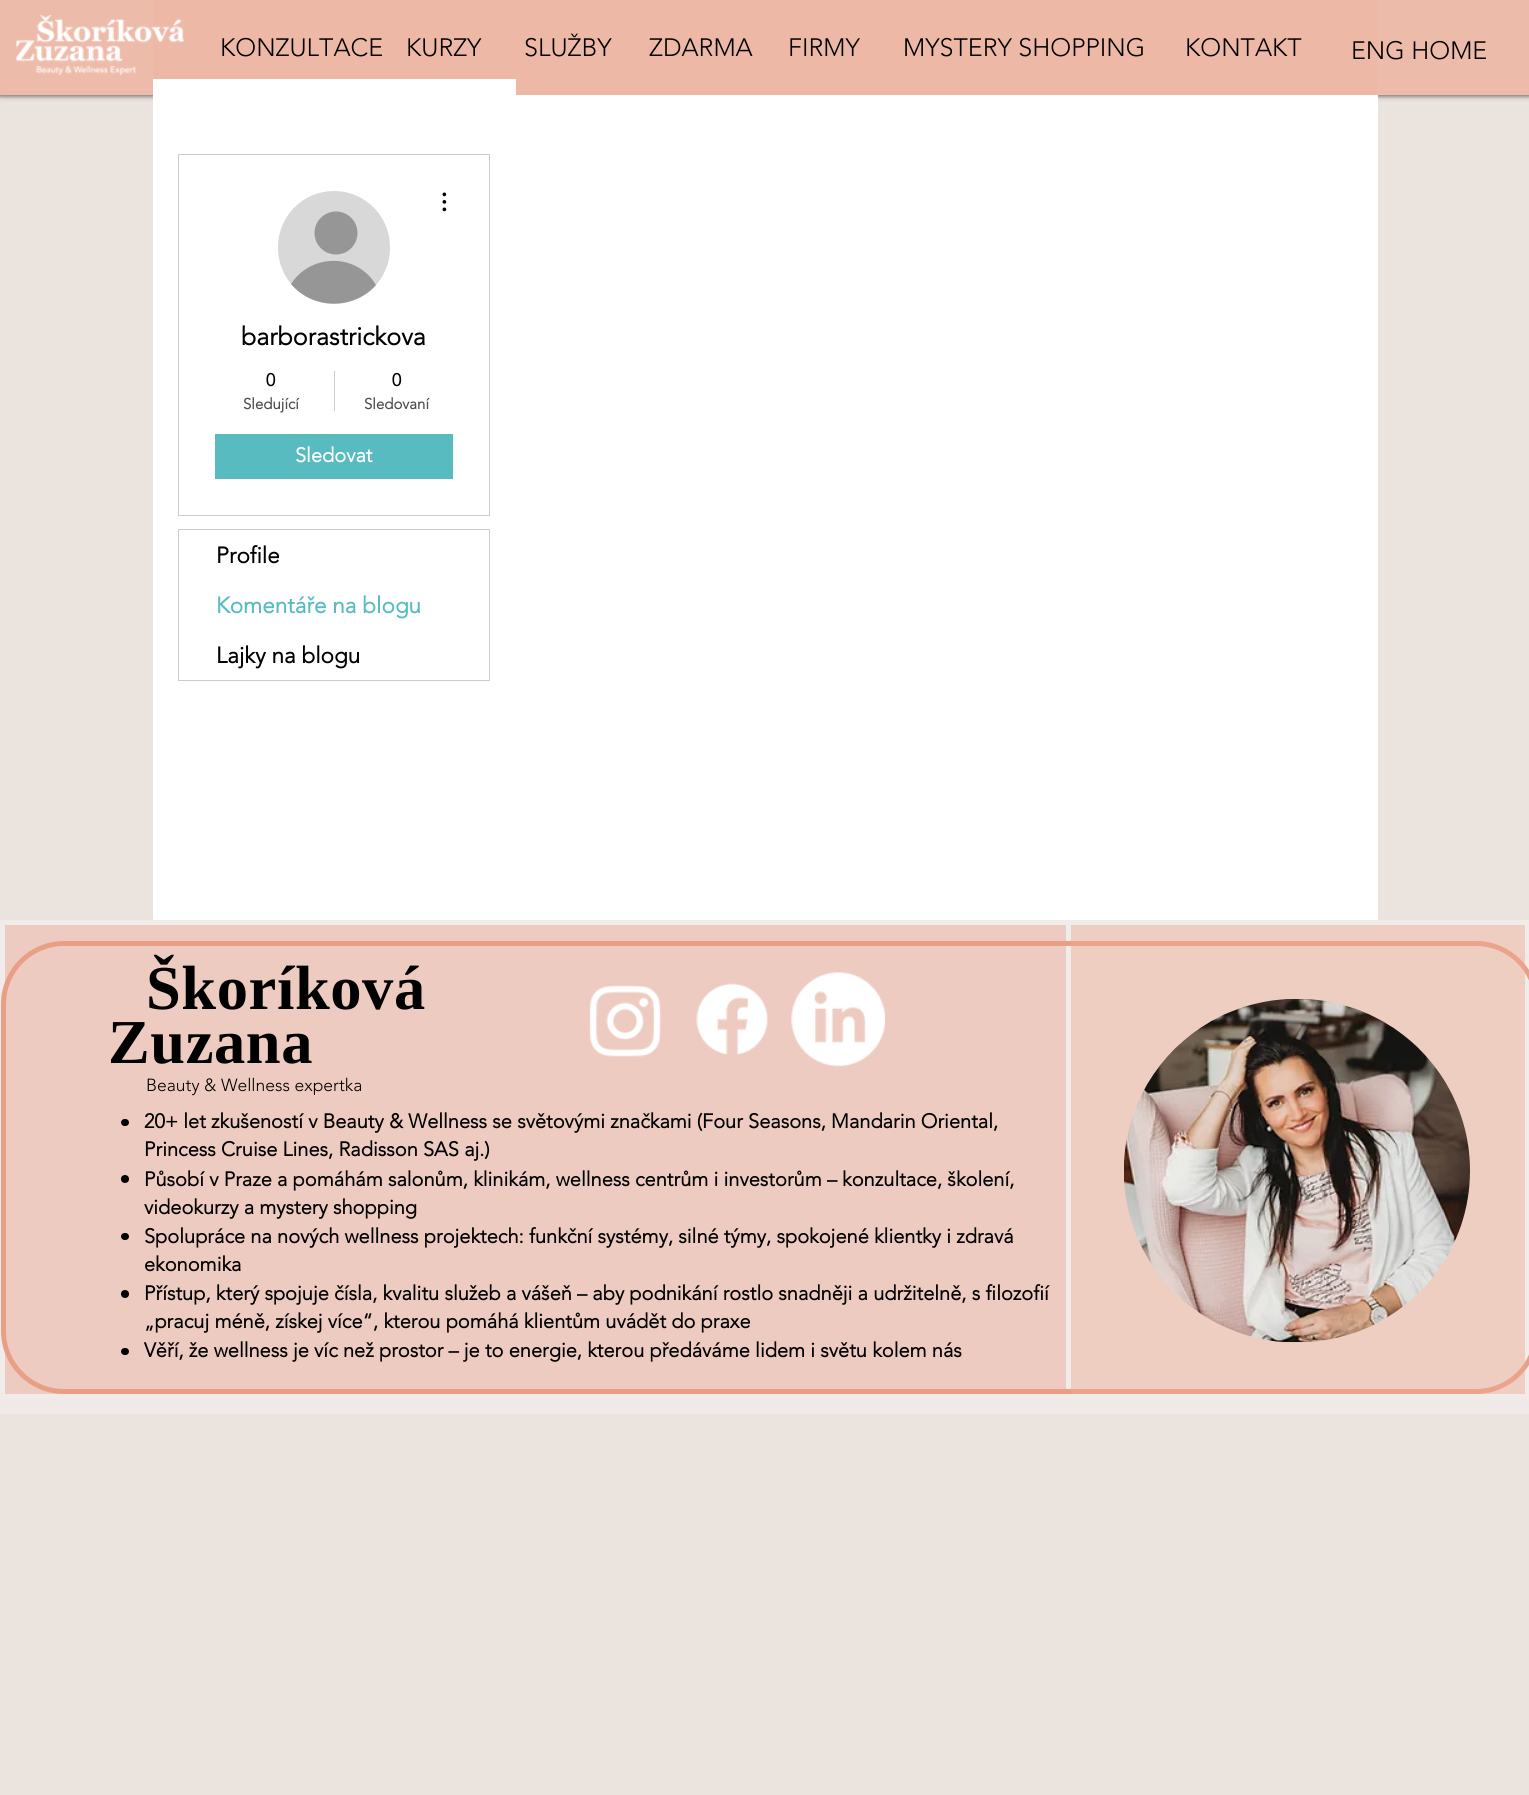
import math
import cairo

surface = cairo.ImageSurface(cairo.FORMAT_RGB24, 1529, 1795)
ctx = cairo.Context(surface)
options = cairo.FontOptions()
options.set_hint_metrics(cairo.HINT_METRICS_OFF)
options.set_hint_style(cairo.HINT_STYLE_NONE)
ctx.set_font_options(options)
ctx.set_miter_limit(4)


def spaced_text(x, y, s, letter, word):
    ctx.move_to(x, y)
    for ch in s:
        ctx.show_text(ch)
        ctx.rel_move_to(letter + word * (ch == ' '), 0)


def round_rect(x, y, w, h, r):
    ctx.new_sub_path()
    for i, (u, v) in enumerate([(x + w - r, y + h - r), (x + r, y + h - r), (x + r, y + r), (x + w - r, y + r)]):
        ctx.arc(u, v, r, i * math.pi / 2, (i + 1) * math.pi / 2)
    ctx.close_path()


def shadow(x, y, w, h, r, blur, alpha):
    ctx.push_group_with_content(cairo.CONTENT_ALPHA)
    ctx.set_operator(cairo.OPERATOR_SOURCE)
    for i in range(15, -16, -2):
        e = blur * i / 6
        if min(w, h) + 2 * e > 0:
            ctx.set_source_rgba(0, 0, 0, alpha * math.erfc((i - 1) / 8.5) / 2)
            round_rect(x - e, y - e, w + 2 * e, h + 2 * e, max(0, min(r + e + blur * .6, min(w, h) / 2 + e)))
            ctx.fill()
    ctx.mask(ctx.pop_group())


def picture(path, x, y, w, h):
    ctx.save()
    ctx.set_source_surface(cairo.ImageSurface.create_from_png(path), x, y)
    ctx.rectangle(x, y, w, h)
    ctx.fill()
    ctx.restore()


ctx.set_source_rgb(0.918, 0.89, 0.871)
ctx.paint()
ctx.set_source_rgb(0, 0, 0)
shadow(0, 1, 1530, 95, 0, 2.5, 0.6)
ctx.set_source_rgb(0.929, 0.733, 0.667)
ctx.rectangle(0, 0, 1529, 95)
ctx.fill()
ctx.set_source_rgb(0.929, 0.722, 0.651)
ctx.rectangle(153, 0, 1225, 95)
ctx.fill()
picture("img1.png", 16, 15, 168, 60)
ctx.select_font_face("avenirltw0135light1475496 Light")
ctx.set_font_size(25)
ctx.set_source_rgb(0, 0, 0)
ctx.move_to(220, 56)
ctx.show_text("KONZULTACE")
ctx.move_to(406, 56)
ctx.show_text("KURZY")
ctx.move_to(524, 56)
ctx.show_text("SLUŽBY")
ctx.move_to(649, 56)
ctx.show_text("ZDARMA")
ctx.move_to(788, 56)
ctx.show_text("FIRMY")
ctx.move_to(903, 56)
ctx.show_text("MYSTERY SHOPPING")
ctx.move_to(1185, 56)
ctx.show_text("KONTAKT")
ctx.move_to(1351, 59)
ctx.show_text("ENG HOME")
ctx.set_source_rgb(1, 1, 1)
ctx.rectangle(153, 95, 1225, 825)
ctx.fill()
ctx.rectangle(153, 79, 363, 16)
ctx.fill()
ctx.rectangle(178.5, 154.5, 311, 361)
ctx.set_source_rgb(0.8, 0.8, 0.8)
ctx.set_line_width(1)
ctx.stroke()
ctx.set_source_rgb(0.847, 0.847, 0.847)
round_rect(278, 191, 112, 113, 56)
ctx.fill()
ctx.set_source_rgb(0.588, 0.588, 0.588)
ctx.arc(336, 233, 21.5, 0, 2 * math.pi)
ctx.fill()
ctx.new_path()
ctx.move_to(376, 285)
ctx.curve_to(354, 310, 313, 310, 291, 284)
ctx.curve_to(311, 253, 357, 253, 376, 285)
ctx.close_path()
ctx.fill()
picture("img2.png", 442, 192, 5, 20)
ctx.select_font_face("avenirltw0135light1475496", cairo.FONT_SLANT_NORMAL, cairo.FONT_WEIGHT_BOLD)
ctx.set_source_rgb(0, 0, 0)
ctx.move_to(241, 345)
ctx.show_text("barborastrickova")
ctx.set_font_size(17.5)
ctx.move_to(266, 386)
ctx.show_text("0")
ctx.set_font_size(15)
ctx.set_source_rgb(0.302, 0.302, 0.302)
ctx.move_to(243, 409)
ctx.show_text("Sledující")
ctx.set_source_rgb(0.8, 0.8, 0.8)
ctx.rectangle(334, 371, 1, 40)
ctx.fill()
ctx.set_font_size(17.5)
ctx.set_source_rgb(0, 0, 0)
ctx.move_to(392, 386)
ctx.show_text("0")
ctx.set_font_size(15)
ctx.set_source_rgb(0.302, 0.302, 0.302)
ctx.move_to(364, 409)
ctx.show_text("Sledovaní")
ctx.set_source_rgb(0.341, 0.733, 0.749)
ctx.rectangle(215, 434, 238, 45)
ctx.fill()
ctx.set_font_size(20)
ctx.set_source_rgb(1, 1, 1)
ctx.move_to(295, 462)
ctx.show_text("Sledovat")
ctx.rectangle(178.5, 529.5, 311, 151)
ctx.set_source_rgb(0.8, 0.8, 0.8)
ctx.stroke()
ctx.set_font_size(22.5)
ctx.set_source_rgb(0, 0, 0)
ctx.move_to(216, 563)
ctx.show_text("Profile")
ctx.set_source_rgb(0.341, 0.733, 0.749)
ctx.move_to(216, 613)
ctx.show_text("Komentáře na blogu")
ctx.set_source_rgb(0, 0, 0)
ctx.move_to(216, 663)
ctx.show_text("Lajky na blogu")
ctx.set_source_rgb(0.945, 0.922, 0.914)
ctx.rectangle(0, 920, 1529, 479)
ctx.fill()
ctx.set_source_rgb(0.929, 0.796, 0.753)
ctx.rectangle(5, 925, 1061, 469)
ctx.fill()
round_rect(3.5, 943.5, 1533, 448, 60.5)
ctx.set_source_rgb(0.914, 0.624, 0.525)
ctx.set_line_width(5)
ctx.stroke()
ctx.select_font_face("Liberation Serif", cairo.FONT_SLANT_NORMAL, cairo.FONT_WEIGHT_BOLD)
ctx.set_font_size(62.5)
ctx.set_source_rgb(0, 0, 0)
spaced_text(146, 1009, "Škoríková", 0.6, 0)
picture("img3.png", 589, 985, 72, 72)
picture("img4.png", 696, 983, 72, 72)
picture("img5.png", 791, 972, 94, 95)
spaced_text(108, 1063, "Zuzana", 0.6, 0)
ctx.select_font_face("avenirltw0135light1475496 Light")
ctx.set_font_size(17.5)
ctx.move_to(146, 1091)
ctx.show_text("Beauty & Wellness expertka")
round_rect(121, 1119, 8, 7, 3.5)
ctx.fill()
ctx.select_font_face("avenirltw0135light1475496", cairo.FONT_SLANT_NORMAL, cairo.FONT_WEIGHT_BOLD)
ctx.set_font_size(20)
ctx.move_to(144, 1128)
ctx.show_text("20+ let zkušeností v Beauty & Wellness se světovými značkami (Four Seasons, Mandarin Oriental,")
ctx.move_to(144, 1156)
ctx.show_text("Princess Cruise Lines, Radisson SAS aj.)")
ctx.new_path()
ctx.arc(125, 1179, 4, 0, 2 * math.pi)
ctx.fill()
ctx.move_to(144, 1186)
ctx.show_text("Působí v Praze a pomáhám salonům, klinikám, wellness centrům i investorům – konzultace, školení,")
ctx.move_to(144, 1214)
ctx.show_text("videokurzy a mystery shopping")
round_rect(121, 1233, 8, 7, 3.5)
ctx.fill()
ctx.move_to(144, 1243)
ctx.show_text("Spolupráce na nových wellness projektech: funkční systémy, silné týmy, spokojené klientky i zdravá")
ctx.move_to(144, 1271)
ctx.show_text("ekonomika")
ctx.new_path()
ctx.arc(125, 1294, 4, 0, 2 * math.pi)
ctx.fill()
ctx.move_to(144, 1300)
ctx.show_text("Přístup, který spojuje čísla, kvalitu služeb a vášeň – aby podnikání rostlo snadněji a udržitelně, s filozofií")
ctx.move_to(144, 1328)
ctx.show_text("„pracuj méně, získej více“, kterou pomáhá klientům uvádět do praxe")
round_rect(121, 1348, 8, 7, 3.5)
ctx.fill()
ctx.move_to(144, 1357)
ctx.show_text("Věří, že wellness je víc než prostor – je to energie, kterou předáváme lidem i světu kolem nás")
ctx.set_source_rgba(0.933, 0.667, 0.58, 0.45)
ctx.rectangle(1071, 925, 454, 469)
ctx.fill()
picture("img6.png", 1124, 999, 346, 344)
ctx.set_source_rgb(0.937, 0.914, 0.91)
ctx.rectangle(0, 1399, 1529, 15)
ctx.fill()
surface.write_to_png("page.png")
